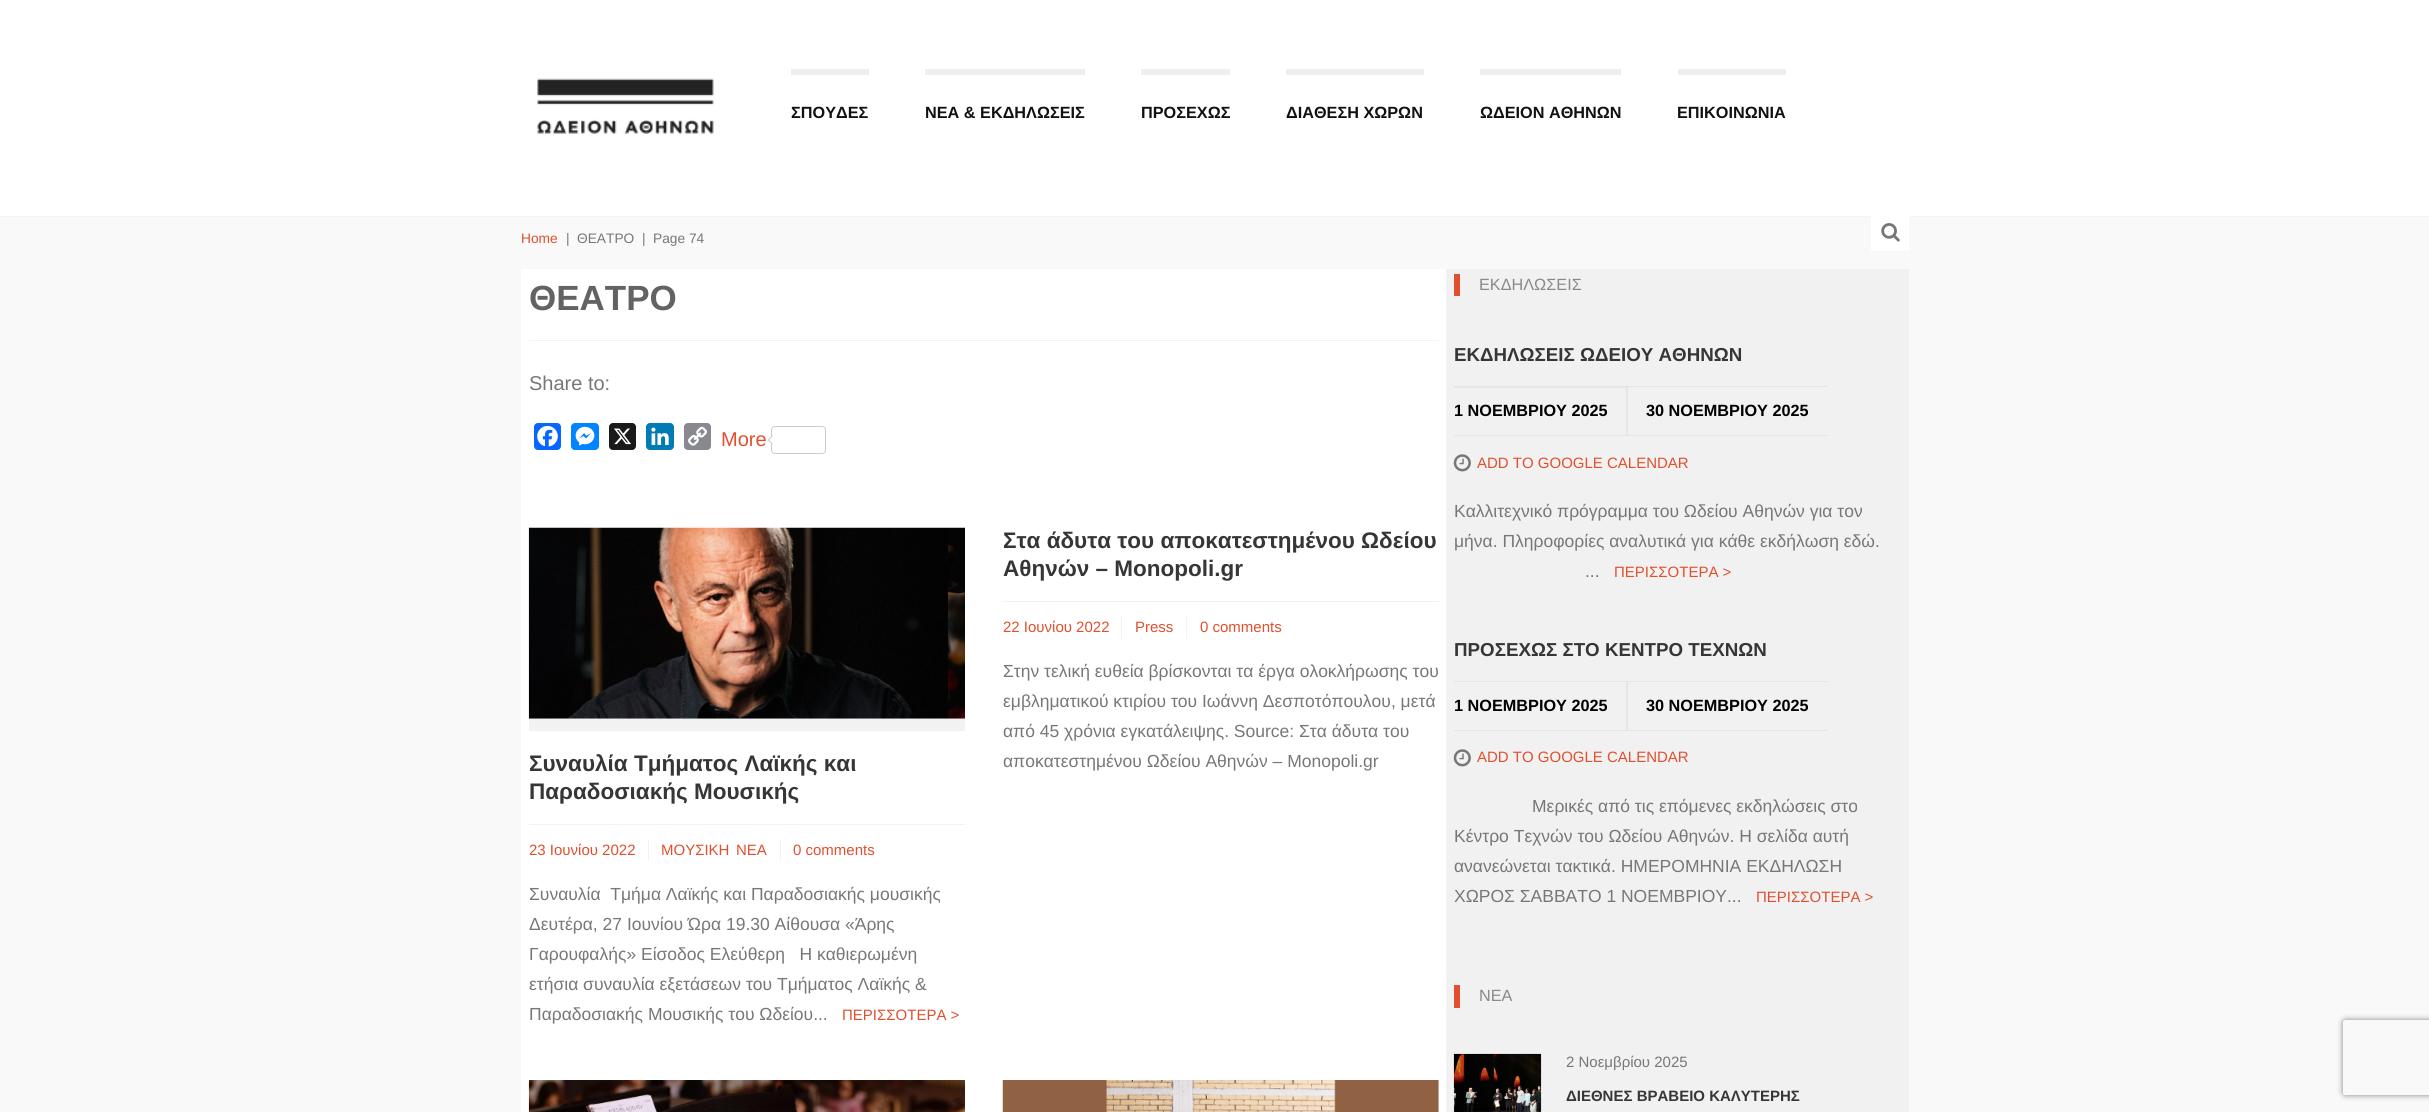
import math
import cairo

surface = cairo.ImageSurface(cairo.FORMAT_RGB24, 2429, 1112)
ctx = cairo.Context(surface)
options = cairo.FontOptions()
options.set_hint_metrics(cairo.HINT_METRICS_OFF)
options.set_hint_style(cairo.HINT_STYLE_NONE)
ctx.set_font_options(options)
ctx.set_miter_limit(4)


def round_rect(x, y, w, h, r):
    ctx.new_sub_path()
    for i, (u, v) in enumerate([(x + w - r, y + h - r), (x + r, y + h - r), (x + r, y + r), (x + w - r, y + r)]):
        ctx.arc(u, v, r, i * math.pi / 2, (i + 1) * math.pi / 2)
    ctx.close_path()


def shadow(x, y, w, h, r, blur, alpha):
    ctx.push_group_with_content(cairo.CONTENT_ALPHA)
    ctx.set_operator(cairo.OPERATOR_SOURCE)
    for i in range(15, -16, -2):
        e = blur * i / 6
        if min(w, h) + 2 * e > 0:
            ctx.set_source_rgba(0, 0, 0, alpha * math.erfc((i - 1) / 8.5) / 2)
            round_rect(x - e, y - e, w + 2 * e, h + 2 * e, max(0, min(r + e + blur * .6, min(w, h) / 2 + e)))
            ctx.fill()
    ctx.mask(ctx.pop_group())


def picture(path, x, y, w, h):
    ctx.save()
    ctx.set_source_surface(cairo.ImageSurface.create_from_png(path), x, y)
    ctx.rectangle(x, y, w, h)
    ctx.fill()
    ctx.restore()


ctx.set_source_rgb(1, 1, 1)
ctx.paint()
picture("img1.png", 537, 78, 177, 56)
ctx.set_source_rgb(0.937, 0.937, 0.937)
ctx.rectangle(791, 69, 78, 6)
ctx.fill()
ctx.select_font_face("Liberation Sans", cairo.FONT_SLANT_NORMAL, cairo.FONT_WEIGHT_BOLD)
ctx.set_font_size(16.25)
ctx.set_source_rgb(0.067, 0.067, 0.067)
ctx.move_to(791, 118)
ctx.show_text("ΣΠΟΥΔΕΣ")
ctx.set_source_rgb(0.937, 0.937, 0.937)
ctx.rectangle(925, 69, 160, 6)
ctx.fill()
ctx.set_source_rgb(0.067, 0.067, 0.067)
ctx.move_to(925, 118)
ctx.show_text("ΝΕΑ & ΕΚΔΗΛΩΣΕΙΣ")
ctx.set_source_rgb(0.937, 0.937, 0.937)
ctx.rectangle(1141, 69, 89, 6)
ctx.fill()
ctx.set_source_rgb(0.067, 0.067, 0.067)
ctx.move_to(1141, 118)
ctx.show_text("ΠΡΟΣΕΧΩΣ")
ctx.set_source_rgb(0.937, 0.937, 0.937)
ctx.rectangle(1286, 69, 138, 6)
ctx.fill()
ctx.set_source_rgb(0.067, 0.067, 0.067)
ctx.move_to(1286, 118)
ctx.show_text("ΔΙΑΘΕΣΗ ΧΩΡΩΝ")
ctx.set_source_rgb(0.937, 0.937, 0.937)
ctx.rectangle(1480, 69, 141, 6)
ctx.fill()
ctx.set_source_rgb(0.067, 0.067, 0.067)
ctx.move_to(1480, 118)
ctx.show_text("ΩΔΕΙΟΝ ΑΘΗΝΩΝ")
ctx.set_source_rgb(0.937, 0.937, 0.937)
ctx.rectangle(1678, 69, 108, 6)
ctx.fill()
ctx.set_source_rgb(0.067, 0.067, 0.067)
ctx.move_to(1677, 118)
ctx.show_text("ΕΠΙΚΟΙΝΩΝΙΑ")
ctx.set_source_rgb(0.976, 0.976, 0.976)
ctx.rectangle(0, 217, 2429, 895)
ctx.fill()
ctx.set_source_rgb(0.957, 0.957, 0.957)
ctx.rectangle(0, 216, 2429, 1)
ctx.fill()
ctx.select_font_face("Liberation Sans")
ctx.set_font_size(13.75)
ctx.set_source_rgb(0.882, 0.31, 0.18)
ctx.move_to(521, 243)
ctx.show_text("Home")
ctx.set_source_rgb(0.467, 0.467, 0.467)
ctx.move_to(566, 243)
ctx.show_text("|")
ctx.move_to(577, 243)
ctx.show_text("ΘΕΑΤΡΟ")
ctx.move_to(642, 243)
ctx.show_text("|")
ctx.move_to(653, 243)
ctx.show_text("Page 74")
ctx.set_source_rgb(1, 1, 1)
ctx.rectangle(1871, 216, 38, 35)
ctx.fill()
picture("img2.png", 1881, 223, 19, 19)
ctx.rectangle(521, 269, 925, 843)
ctx.fill()
ctx.set_source_rgb(0.949, 0.949, 0.949)
ctx.rectangle(529, 340, 910, 1)
ctx.fill()
ctx.select_font_face("Liberation Sans", cairo.FONT_SLANT_NORMAL, cairo.FONT_WEIGHT_BOLD)
ctx.set_font_size(35)
ctx.set_source_rgb(0.388, 0.388, 0.388)
ctx.move_to(529, 310)
ctx.show_text("ΘΕΑΤΡΟ")
ctx.select_font_face("Liberation Sans")
ctx.set_font_size(20)
ctx.set_source_rgb(0.467, 0.467, 0.467)
ctx.move_to(529, 390)
ctx.show_text("Share to:")
ctx.set_source_rgb(0.031, 0.4, 1)
round_rect(534, 423, 27, 27, 4)
ctx.fill()
picture("img3.png", 537, 425, 21, 22)
ctx.set_source_rgb(0, 0.518, 1)
round_rect(571, 423, 28, 27, 4)
ctx.fill()
picture("img4.png", 575, 426, 20, 20)
ctx.set_source_rgb(0.102, 0.102, 0.102)
round_rect(609, 423, 27, 27, 4)
ctx.fill()
picture("img5.png", 614, 428, 17, 17)
ctx.set_source_rgb(0, 0.482, 0.71)
round_rect(646, 423, 28, 27, 4)
ctx.fill()
picture("img6.png", 651, 427, 18, 18)
ctx.set_source_rgb(0.533, 0.537, 0.565)
round_rect(684, 423, 27, 27, 4)
ctx.fill()
picture("img7.png", 688, 426, 19, 20)
ctx.set_source_rgb(0.882, 0.31, 0.18)
ctx.move_to(721, 446)
ctx.show_text("More")
round_rect(771.5, 426.5, 54, 27, 3.5)
ctx.set_source_rgb(0.8, 0.8, 0.8)
ctx.set_line_width(1)
ctx.stroke()
ctx.new_path()
ctx.move_to(772.5, 435)
ctx.line_to(772.5, 445)
ctx.line_to(767.5, 440)
ctx.close_path()
ctx.fill()
ctx.set_source_rgb(1, 1, 1)
ctx.new_path()
ctx.move_to(774, 435)
ctx.line_to(774, 445)
ctx.line_to(769, 440)
ctx.close_path()
ctx.fill()
ctx.set_source_rgb(0.949, 0.949, 0.949)
ctx.rectangle(1003, 601, 436, 1)
ctx.fill()
ctx.select_font_face("Liberation Sans", cairo.FONT_SLANT_NORMAL, cairo.FONT_WEIGHT_BOLD)
ctx.set_font_size(22.5)
ctx.set_source_rgb(0.212, 0.212, 0.212)
ctx.move_to(1003, 548)
ctx.show_text("Στα άδυτα του αποκατεστημένου Ωδείου")
ctx.move_to(1003, 576)
ctx.show_text("Αθηνών – Monopoli.gr")
ctx.set_source_rgb(0.949, 0.949, 0.949)
ctx.rectangle(1121, 616, 1, 23)
ctx.fill()
ctx.select_font_face("Liberation Sans")
ctx.set_font_size(15)
ctx.set_source_rgb(0.882, 0.31, 0.18)
ctx.move_to(1003, 632)
ctx.show_text("22 Ιουνίου 2022")
ctx.set_source_rgb(0.949, 0.949, 0.949)
ctx.rectangle(1186, 616, 1, 23)
ctx.fill()
ctx.set_source_rgb(0.882, 0.31, 0.18)
ctx.move_to(1135, 632)
ctx.show_text("Press")
ctx.move_to(1200, 632)
ctx.show_text("0 comments")
ctx.set_font_size(17.5)
ctx.set_source_rgb(0.467, 0.467, 0.467)
ctx.move_to(1003, 677)
ctx.show_text("Στην τελική ευθεία βρίσκονται τα έργα ολοκλήρωσης του")
ctx.move_to(1003, 707)
ctx.show_text("εμβληματικού κτιρίου του Ιωάννη Δεσποτόπουλου, μετά")
ctx.move_to(1003, 737)
ctx.show_text("από 45 χρόνια εγκατάλειψης. Source: Στα άδυτα του")
ctx.move_to(1003, 767)
ctx.show_text("αποκατεστημένου Ωδείου Αθηνών – Monopoli.gr")
ctx.set_source_rgb(0.949, 0.949, 0.949)
ctx.rectangle(529, 719, 436, 12)
ctx.fill()
picture("img8.png", 528, 527, 437, 192)
ctx.rectangle(529, 824, 436, 1)
ctx.fill()
ctx.select_font_face("Liberation Sans", cairo.FONT_SLANT_NORMAL, cairo.FONT_WEIGHT_BOLD)
ctx.set_font_size(22.5)
ctx.set_source_rgb(0.212, 0.212, 0.212)
ctx.move_to(529, 771)
ctx.show_text("Συναυλία Τμήματος Λαϊκής και")
ctx.move_to(529, 799)
ctx.show_text("Παραδοσιακής Μουσικής")
ctx.set_source_rgb(0.949, 0.949, 0.949)
ctx.rectangle(648, 839, 1, 22)
ctx.fill()
ctx.select_font_face("Liberation Sans")
ctx.set_font_size(15)
ctx.set_source_rgb(0.882, 0.31, 0.18)
ctx.move_to(529, 855)
ctx.show_text("23 Ιουνίου 2022")
ctx.set_source_rgb(0.949, 0.949, 0.949)
ctx.rectangle(780, 839, 1, 22)
ctx.fill()
ctx.set_source_rgb(0.882, 0.31, 0.18)
ctx.move_to(661, 855)
ctx.show_text("ΜΟΥΣΙΚΗ")
ctx.move_to(736, 855)
ctx.show_text("ΝΕΑ")
ctx.move_to(793, 855)
ctx.show_text("0 comments")
ctx.set_font_size(17.5)
ctx.set_source_rgb(0.467, 0.467, 0.467)
ctx.move_to(529, 900)
ctx.show_text("Συναυλία  Τμήμα Λαϊκής και Παραδοσιακής μουσικής")
ctx.move_to(529, 930)
ctx.show_text("Δευτέρα, 27 Ιουνίου Ώρα 19.30 Αίθουσα «Άρης")
ctx.move_to(529, 960)
ctx.show_text("Γαρουφαλής» Είσοδος Ελεύθερη   Η καθιερωμένη")
ctx.move_to(529, 990)
ctx.show_text("ετήσια συναυλία εξετάσεων του Τμήματος Λαϊκής &")
ctx.move_to(529, 1020)
ctx.show_text("Παραδοσιακής Μουσικής του Ωδείου...")
ctx.set_font_size(15)
ctx.set_source_rgb(0.882, 0.31, 0.18)
ctx.move_to(842, 1020)
ctx.show_text("ΠΕΡΙΣΣΟΤΕΡΑ >")
picture("img9.png", 528, 1080, 437, 32)
picture("img10.png", 1002, 1080, 437, 32)
ctx.set_source_rgb(0.945, 0.945, 0.945)
ctx.rectangle(1446, 269, 463, 843)
ctx.fill()
ctx.set_source_rgb(0.882, 0.31, 0.18)
ctx.rectangle(1454, 274, 6, 22)
ctx.fill()
ctx.set_font_size(16.25)
ctx.set_source_rgb(0.537, 0.537, 0.537)
ctx.move_to(1479, 290)
ctx.show_text("ΕΚΔΗΛΩΣΕΙΣ")
ctx.select_font_face("Liberation Sans", cairo.FONT_SLANT_NORMAL, cairo.FONT_WEIGHT_BOLD)
ctx.set_font_size(18.75)
ctx.set_source_rgb(0.212, 0.212, 0.212)
ctx.move_to(1454, 361)
ctx.show_text("ΕΚΔΗΛΩΣΕΙΣ ΩΔΕΙΟΥ ΑΘΗΝΩΝ")
ctx.set_source_rgb(0.898, 0.898, 0.898)
ctx.new_path()
ctx.move_to(1454, 386)
ctx.line_to(1628, 386)
ctx.line_to(1626, 388)
ctx.line_to(1454, 388)
ctx.close_path()
ctx.fill()
ctx.set_source_rgba(0, 0, 0, 0.05)
ctx.new_path()
ctx.move_to(1628, 386)
ctx.line_to(1628, 436)
ctx.line_to(1626, 435)
ctx.line_to(1626, 388)
ctx.close_path()
ctx.fill()
ctx.new_path()
ctx.move_to(1628, 436)
ctx.line_to(1454, 436)
ctx.line_to(1454, 435)
ctx.line_to(1626, 435)
ctx.close_path()
ctx.fill()
ctx.set_font_size(16.25)
ctx.set_source_rgb(0, 0, 0)
ctx.move_to(1454, 416)
ctx.show_text("1 ΝΟΕΜΒΡΙΟΥ 2025")
ctx.set_source_rgb(0.898, 0.898, 0.898)
ctx.rectangle(1628, 386, 200, 1)
ctx.fill()
ctx.rectangle(1628, 435, 200, 1)
ctx.fill()
ctx.set_source_rgb(0, 0, 0)
ctx.move_to(1646, 416)
ctx.show_text("30 ΝΟΕΜΒΡΙΟΥ 2025")
picture("img11.png", 1453, 454, 18, 18)
ctx.select_font_face("Liberation Sans")
ctx.set_font_size(15)
ctx.set_source_rgb(0.882, 0.31, 0.18)
ctx.move_to(1477, 468)
ctx.show_text("ADD TO GOOGLE CALENDAR")
ctx.set_font_size(17.5)
ctx.set_source_rgb(0.467, 0.467, 0.467)
ctx.move_to(1454, 517)
ctx.show_text("Καλλιτεχνικό πρόγραμμα του Ωδείου Αθηνών για τον")
ctx.move_to(1454, 547)
ctx.show_text("μήνα. Πληροφορίες αναλυτικά για κάθε εκδήλωση εδώ.")
ctx.move_to(1585, 577)
ctx.show_text("...")
ctx.set_font_size(15)
ctx.set_source_rgb(0.882, 0.31, 0.18)
ctx.move_to(1614, 577)
ctx.show_text("ΠΕΡΙΣΣΟΤΕΡΑ >")
ctx.select_font_face("Liberation Sans", cairo.FONT_SLANT_NORMAL, cairo.FONT_WEIGHT_BOLD)
ctx.set_font_size(18.75)
ctx.set_source_rgb(0.212, 0.212, 0.212)
ctx.move_to(1454, 656)
ctx.show_text("ΠΡΟΣΕΧΩΣ ΣΤΟ ΚΕΝΤΡΟ ΤΕΧΝΩΝ")
ctx.set_source_rgb(0.898, 0.898, 0.898)
ctx.new_path()
ctx.move_to(1454, 681)
ctx.line_to(1628, 681)
ctx.line_to(1626, 682)
ctx.line_to(1454, 682)
ctx.close_path()
ctx.fill()
ctx.set_source_rgba(0, 0, 0, 0.05)
ctx.new_path()
ctx.move_to(1628, 681)
ctx.line_to(1628, 731)
ctx.line_to(1626, 730)
ctx.line_to(1626, 682)
ctx.close_path()
ctx.fill()
ctx.new_path()
ctx.move_to(1628, 731)
ctx.line_to(1454, 731)
ctx.line_to(1454, 730)
ctx.line_to(1626, 730)
ctx.close_path()
ctx.fill()
ctx.set_font_size(16.25)
ctx.set_source_rgb(0, 0, 0)
ctx.move_to(1454, 711)
ctx.show_text("1 ΝΟΕΜΒΡΙΟΥ 2025")
ctx.set_source_rgb(0.898, 0.898, 0.898)
ctx.rectangle(1628, 681, 200, 1)
ctx.fill()
ctx.rectangle(1628, 730, 200, 1)
ctx.fill()
ctx.set_source_rgb(0, 0, 0)
ctx.move_to(1646, 711)
ctx.show_text("30 ΝΟΕΜΒΡΙΟΥ 2025")
picture("img11.png", 1453, 749, 18, 18)
ctx.select_font_face("Liberation Sans")
ctx.set_font_size(15)
ctx.set_source_rgb(0.882, 0.31, 0.18)
ctx.move_to(1477, 762)
ctx.show_text("ADD TO GOOGLE CALENDAR")
ctx.set_font_size(17.5)
ctx.set_source_rgb(0.467, 0.467, 0.467)
ctx.move_to(1532, 812)
ctx.show_text("Μερικές από τις επόμενες εκδηλώσεις στο")
ctx.move_to(1454, 842)
ctx.show_text("Κέντρο Τεχνών του Ωδείου Αθηνών. Η σελίδα αυτή")
ctx.move_to(1454, 872)
ctx.show_text("ανανεώνεται τακτικά. ΗΜΕΡΟΜΗΝΙΑ ΕΚΔΗΛΩΣΗ")
ctx.move_to(1454, 902)
ctx.show_text("ΧΩΡΟΣ ΣΑΒΒΑΤΟ 1 ΝΟΕΜΒΡΙΟΥ...")
ctx.set_font_size(15)
ctx.set_source_rgb(0.882, 0.31, 0.18)
ctx.move_to(1756, 902)
ctx.show_text("ΠΕΡΙΣΣΟΤΕΡΑ >")
ctx.rectangle(1454, 985, 6, 23)
ctx.fill()
ctx.set_font_size(16.25)
ctx.set_source_rgb(0.537, 0.537, 0.537)
ctx.move_to(1479, 1001)
ctx.show_text("ΝΕΑ")
picture("img12.png", 1453, 1053, 89, 59)
ctx.set_font_size(15)
ctx.set_source_rgb(0.467, 0.467, 0.467)
ctx.move_to(1566, 1067)
ctx.show_text("2 Νοεμβρίου 2025")
ctx.select_font_face("Liberation Sans", cairo.FONT_SLANT_NORMAL, cairo.FONT_WEIGHT_BOLD)
ctx.set_source_rgb(0.212, 0.212, 0.212)
ctx.move_to(1566, 1101)
ctx.show_text("ΔΙΕΘΝΕΣ ΒΡΑΒΕΙΟ ΚΑΛΥΤΕΡΗΣ")
ctx.save()
ctx.set_fill_rule(cairo.FILL_RULE_EVEN_ODD)
ctx.new_path()
ctx.move_to(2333, 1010)
ctx.line_to(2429, 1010)
ctx.line_to(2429, 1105)
ctx.line_to(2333, 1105)
ctx.close_path()
ctx.move_to(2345.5, 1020)
ctx.line_to(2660.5, 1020)
ctx.curve_to(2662, 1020, 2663, 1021, 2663, 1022.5)
ctx.line_to(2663, 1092.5)
ctx.curve_to(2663, 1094, 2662, 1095, 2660.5, 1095)
ctx.line_to(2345.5, 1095)
ctx.curve_to(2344, 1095, 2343, 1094, 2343, 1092.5)
ctx.line_to(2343, 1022.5)
ctx.curve_to(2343, 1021, 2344, 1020, 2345.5, 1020)
ctx.close_path()
ctx.clip()
ctx.set_source_rgb(0.502, 0.502, 0.502)
shadow(2343, 1020, 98, 75, 2.5, 3, 1)
ctx.restore()
surface.write_to_png("page.png")
